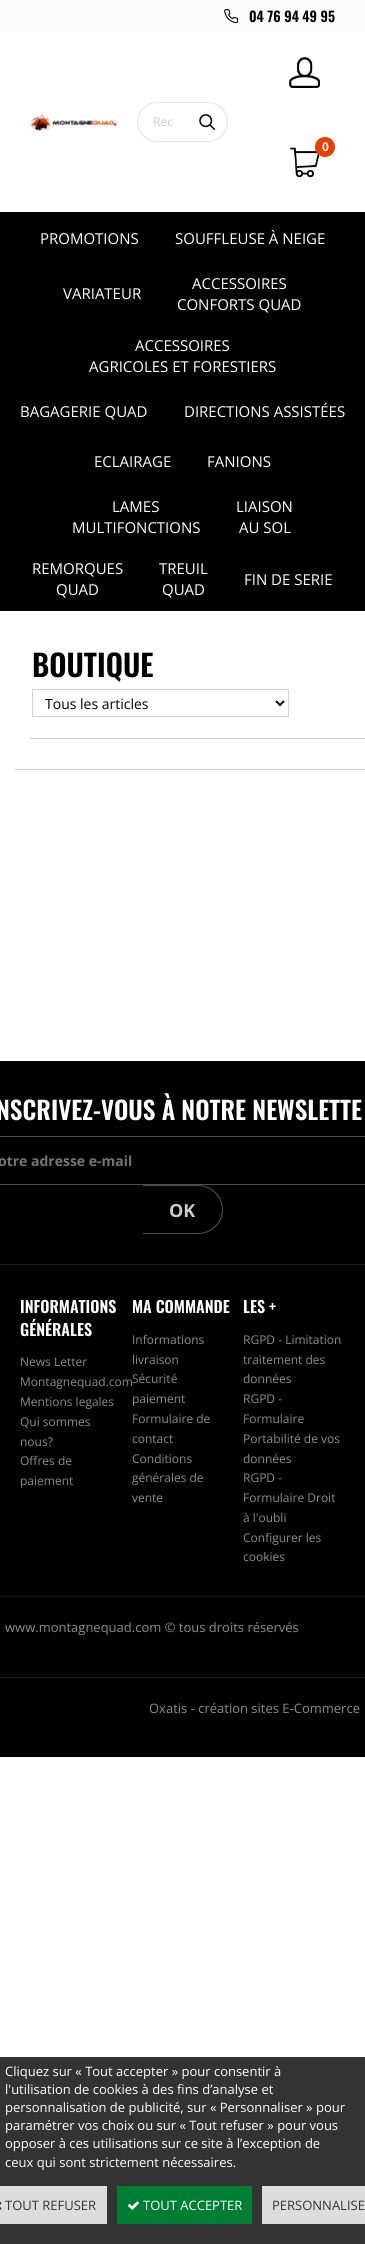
import math
import cairo

surface = cairo.ImageSurface(cairo.FORMAT_RGB24, 365, 2244)
ctx = cairo.Context(surface)
options = cairo.FontOptions()
options.set_hint_metrics(cairo.HINT_METRICS_OFF)
options.set_hint_style(cairo.HINT_STYLE_NONE)
ctx.set_font_options(options)
ctx.set_miter_limit(4)


def picture(path, x, y, w, h):
    ctx.save()
    ctx.set_source_surface(cairo.ImageSurface.create_from_png(path), x, y)
    ctx.rectangle(x, y, w, h)
    ctx.fill()
    ctx.restore()


ctx.set_source_rgb(1, 1, 1)
ctx.paint()
ctx.set_source_rgb(0.984, 0.984, 0.984)
ctx.rectangle(0, 0, 365, 32)
ctx.fill()
picture("img1.png", 224, 9, 14, 14)
ctx.select_font_face("Oswald SemiBold")
ctx.set_font_size(14)
ctx.set_source_rgb(0, 0, 0)
ctx.move_to(249, 22)
ctx.show_text("04 76 94 49 95")
picture("img2.png", 28, 114, 89, 18)
ctx.set_source_rgb(0.902, 0.902, 0.902)
ctx.set_fill_rule(cairo.FILL_RULE_EVEN_ODD)
ctx.new_path()
ctx.move_to(157, 102)
ctx.line_to(187, 102)
ctx.line_to(187, 142)
ctx.line_to(157, 142)
ctx.curve_to(146, 142, 137, 133, 137, 122)
ctx.curve_to(137, 111, 146, 102, 157, 102)
ctx.close_path()
ctx.move_to(157, 103)
ctx.line_to(187, 103)
ctx.line_to(187, 141)
ctx.line_to(157, 141)
ctx.curve_to(147, 141, 138, 132, 138, 122)
ctx.curve_to(138, 112, 147, 103, 157, 103)
ctx.close_path()
ctx.fill()
ctx.select_font_face("Open Sans")
ctx.set_font_size(12)
ctx.set_source_rgb(0.8, 0.8, 0.8)
ctx.move_to(153, 126)
ctx.show_text("Rec")
picture("img3.png", 199, 114, 16, 16)
ctx.set_source_rgb(0.902, 0.902, 0.902)
ctx.new_path()
ctx.move_to(187, 102)
ctx.line_to(208, 102)
ctx.curve_to(219, 102, 228, 111, 228, 122)
ctx.curve_to(228, 133, 219, 142, 208, 142)
ctx.line_to(187, 142)
ctx.close_path()
ctx.move_to(187, 103)
ctx.line_to(208, 103)
ctx.curve_to(218, 103, 227, 112, 227, 122)
ctx.curve_to(227, 132, 218, 141, 208, 141)
ctx.line_to(187, 141)
ctx.close_path()
ctx.fill()
picture("img4.png", 289, 57, 31, 31)
picture("img5.png", 290, 147, 30, 30)
ctx.set_source_rgb(0.937, 0.235, 0)
ctx.arc(325, 147, 10, 0, 2 * math.pi)
ctx.fill()
ctx.select_font_face("Open Sans", cairo.FONT_SLANT_NORMAL, cairo.FONT_WEIGHT_BOLD)
ctx.set_source_rgb(1, 1, 1)
ctx.move_to(322, 151)
ctx.show_text("0")
ctx.set_source_rgb(0, 0, 0)
ctx.rectangle(0, 212, 365, 399)
ctx.fill()
ctx.select_font_face("Open Sans")
ctx.set_font_size(15)
ctx.set_source_rgb(1, 1, 1)
ctx.move_to(40, 244)
ctx.show_text("PROMOTIONS")
ctx.move_to(175, 244)
ctx.show_text("SOUFFLEUSE À NEIGE")
ctx.move_to(63, 299)
ctx.show_text("VARIATEUR")
ctx.move_to(192, 289)
ctx.show_text("ACCESSOIRES")
ctx.move_to(177, 310)
ctx.show_text("CONFORTS QUAD")
ctx.move_to(135, 351)
ctx.show_text("ACCESSOIRES")
ctx.move_to(89, 372)
ctx.show_text("AGRICOLES ET FORESTIERS")
ctx.move_to(20, 417)
ctx.show_text("BAGAGERIE QUAD")
ctx.move_to(184, 417)
ctx.show_text("DIRECTIONS ASSISTÉES")
ctx.move_to(94, 467)
ctx.show_text("ECLAIRAGE")
ctx.move_to(207, 467)
ctx.show_text("FANIONS")
ctx.move_to(112, 512)
ctx.show_text("LAMES")
ctx.move_to(72, 533)
ctx.show_text("MULTIFONCTIONS")
ctx.move_to(236, 512)
ctx.show_text("LIAISON")
ctx.move_to(239, 533)
ctx.show_text("AU SOL")
ctx.move_to(32, 574)
ctx.show_text("REMORQUES")
ctx.move_to(56, 595)
ctx.show_text("QUAD")
ctx.move_to(159, 574)
ctx.show_text("TREUIL")
ctx.move_to(162, 595)
ctx.show_text("QUAD")
ctx.move_to(244, 585)
ctx.show_text("FIN DE SERIE")
ctx.set_source_rgb(0.816, 0.816, 0.816)
ctx.rectangle(30, 738, 335, 1)
ctx.fill()
ctx.select_font_face("Oswald SemiBold")
ctx.set_font_size(30)
ctx.set_source_rgb(0, 0, 0)
ctx.move_to(32, 677)
ctx.show_text("BOUTIQUE")
ctx.rectangle(32.5, 689.5, 256, 27)
ctx.set_source_rgb(0.816, 0.816, 0.816)
ctx.set_line_width(1)
ctx.stroke()
ctx.new_path()
ctx.move_to(276, 701)
ctx.line_to(280, 705)
ctx.line_to(284, 701)
ctx.set_source_rgb(0, 0, 0)
ctx.set_line_width(2)
ctx.stroke()
ctx.select_font_face("Open Sans")
ctx.set_font_size(14)
ctx.move_to(45, 709)
ctx.show_text("Tous les articles")
ctx.set_source_rgb(0.816, 0.816, 0.816)
ctx.rectangle(15, 769, 350, 1)
ctx.fill()
ctx.set_source_rgb(0, 0, 0)
ctx.rectangle(0, 1061, 365, 696)
ctx.fill()
ctx.set_source_rgb(0.102, 0.102, 0.102)
ctx.rectangle(0, 1264, 365, 1)
ctx.fill()
ctx.select_font_face("Oswald SemiBold")
ctx.set_font_size(25)
ctx.set_source_rgb(1, 1, 1)
ctx.move_to(-4, 1120)
ctx.show_text("NSCRIVEZ-VOUS À NOTRE NEWSLETTE")
ctx.set_source_rgb(0.302, 0.302, 0.302)
ctx.new_path()
ctx.move_to(-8, 1136)
ctx.line_to(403, 1136)
ctx.line_to(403, 1185)
ctx.line_to(-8, 1185)
ctx.curve_to(-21, 1185, -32, 1174, -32, 1160)
ctx.curve_to(-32, 1147, -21, 1136, -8, 1136)
ctx.close_path()
ctx.move_to(-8, 1137)
ctx.line_to(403, 1137)
ctx.line_to(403, 1184)
ctx.line_to(-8, 1184)
ctx.curve_to(-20, 1184, -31, 1173, -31, 1160)
ctx.curve_to(-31, 1148, -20, 1137, -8, 1137)
ctx.close_path()
ctx.fill()
ctx.select_font_face("Open Sans", cairo.FONT_SLANT_NORMAL, cairo.FONT_WEIGHT_BOLD)
ctx.set_font_size(14)
ctx.set_source_rgb(0.459, 0.459, 0.459)
ctx.move_to(-2, 1166)
ctx.show_text("otre adresse e-mail")
ctx.set_source_rgb(0.302, 0.302, 0.302)
ctx.new_path()
ctx.move_to(143, 1185)
ctx.line_to(198, 1185)
ctx.curve_to(212, 1185, 223, 1196, 223, 1210)
ctx.curve_to(223, 1223, 212, 1234, 198, 1234)
ctx.line_to(143, 1234)
ctx.close_path()
ctx.move_to(143, 1186)
ctx.line_to(198, 1186)
ctx.curve_to(211, 1186, 222, 1197, 222, 1210)
ctx.curve_to(222, 1222, 211, 1233, 198, 1233)
ctx.line_to(143, 1233)
ctx.close_path()
ctx.fill()
ctx.set_font_size(18)
ctx.set_source_rgb(0.8, 0.8, 0.8)
ctx.move_to(169, 1217)
ctx.show_text("OK")
ctx.select_font_face("Oswald SemiBold")
ctx.set_font_size(16)
ctx.set_source_rgb(1, 1, 1)
ctx.move_to(20, 1313)
ctx.show_text("INFORMATIONS")
ctx.move_to(20, 1336)
ctx.show_text("GÉNÉRALES")
ctx.select_font_face("Open Sans")
ctx.set_font_size(12)
ctx.set_source_rgb(0.549, 0.549, 0.549)
ctx.move_to(20, 1366)
ctx.show_text("News Letter")
ctx.move_to(20, 1386)
ctx.show_text("Montagnequad.com")
ctx.move_to(20, 1406)
ctx.show_text("Mentions legales")
ctx.move_to(20, 1426)
ctx.show_text("Qui sommes")
ctx.move_to(20, 1446)
ctx.show_text("nous?")
ctx.move_to(20, 1465)
ctx.show_text("Offres de")
ctx.move_to(20, 1485)
ctx.show_text("paiement")
ctx.select_font_face("Oswald SemiBold")
ctx.set_font_size(16)
ctx.set_source_rgb(1, 1, 1)
ctx.move_to(132, 1313)
ctx.show_text("MA COMMANDE")
ctx.select_font_face("Open Sans")
ctx.set_font_size(12)
ctx.set_source_rgb(0.549, 0.549, 0.549)
ctx.move_to(132, 1344)
ctx.show_text("Informations")
ctx.move_to(132, 1364)
ctx.show_text("livraison")
ctx.move_to(132, 1383)
ctx.show_text("Sécurité")
ctx.move_to(132, 1403)
ctx.show_text("paiement")
ctx.move_to(132, 1423)
ctx.show_text("Formulaire de")
ctx.move_to(132, 1443)
ctx.show_text("contact")
ctx.move_to(132, 1463)
ctx.show_text("Conditions")
ctx.move_to(132, 1482)
ctx.show_text("générales de")
ctx.move_to(132, 1502)
ctx.show_text("vente")
ctx.select_font_face("Oswald SemiBold")
ctx.set_font_size(16)
ctx.set_source_rgb(1, 1, 1)
ctx.move_to(243, 1313)
ctx.show_text("LES +")
ctx.select_font_face("Open Sans")
ctx.set_font_size(12)
ctx.set_source_rgb(0.549, 0.549, 0.549)
ctx.move_to(243, 1344)
ctx.show_text("RGPD - Limitation")
ctx.move_to(243, 1364)
ctx.show_text("traitement des")
ctx.move_to(243, 1383)
ctx.show_text("données")
ctx.move_to(243, 1403)
ctx.show_text("RGPD -")
ctx.move_to(243, 1423)
ctx.show_text("Formulaire")
ctx.move_to(243, 1443)
ctx.show_text("Portabilité de vos")
ctx.move_to(243, 1463)
ctx.show_text("données")
ctx.move_to(243, 1482)
ctx.show_text("RGPD -")
ctx.move_to(243, 1502)
ctx.show_text("Formulaire Droit")
ctx.move_to(243, 1522)
ctx.show_text("à l'oubli")
ctx.move_to(243, 1542)
ctx.show_text("Configurer les")
ctx.move_to(243, 1561)
ctx.show_text("cookies")
ctx.set_source_rgb(0.102, 0.102, 0.102)
ctx.rectangle(0, 1596, 365, 1)
ctx.fill()
ctx.set_font_size(13)
ctx.set_source_rgb(0.549, 0.549, 0.549)
ctx.move_to(5, 1632)
ctx.show_text("www.montagnequad.com © tous droits réservés")
ctx.set_source_rgb(0.102, 0.102, 0.102)
ctx.rectangle(0, 1677, 365, 1)
ctx.fill()
ctx.set_source_rgb(0.549, 0.549, 0.549)
ctx.move_to(149, 1713)
ctx.show_text("Oxatis - création sites E-Commerce")
ctx.set_source_rgb(0.2, 0.2, 0.2)
ctx.rectangle(0, 2057, 365, 187)
ctx.fill()
ctx.set_source_rgb(1, 1, 1)
ctx.move_to(5, 2076)
ctx.show_text("Cliquez sur « Tout accepter » pour consentir à")
ctx.move_to(5, 2094)
ctx.show_text("l'utilisation de cookies à des fins d’analyse et")
ctx.move_to(5, 2112)
ctx.show_text("personnalisation de publicité, sur « Personnaliser » pour")
ctx.move_to(5, 2130)
ctx.show_text("paramétrer vos choix ou sur « Tout refuser » pour vous")
ctx.move_to(5, 2148)
ctx.show_text("opposer à ces utilisations sur ce site à l’exception de")
ctx.move_to(5, 2167)
ctx.show_text("ceux qui sont strictement nécessaires.")
ctx.set_source_rgb(0.867, 0.867, 0.867)
ctx.rectangle(0, 2186, 107, 38)
ctx.fill()
picture("img6.png", 0, 2201, 2, 9)
ctx.set_source_rgb(0.2, 0.2, 0.2)
ctx.move_to(5, 2210)
ctx.show_text("TOUT REFUSER")
ctx.set_source_rgb(0, 0.494, 0.2)
ctx.rectangle(117, 2186, 135, 38)
ctx.fill()
picture("img7.png", 127, 2201, 13, 9)
ctx.set_source_rgb(1, 1, 1)
ctx.move_to(143, 2210)
ctx.show_text("TOUT ACCEPTER")
ctx.set_source_rgb(0.867, 0.867, 0.867)
ctx.rectangle(262, 2186, 103, 38)
ctx.fill()
ctx.set_source_rgb(0.2, 0.2, 0.2)
ctx.move_to(272, 2210)
ctx.show_text("PERSONNALISE")
surface.write_to_png("page.png")
